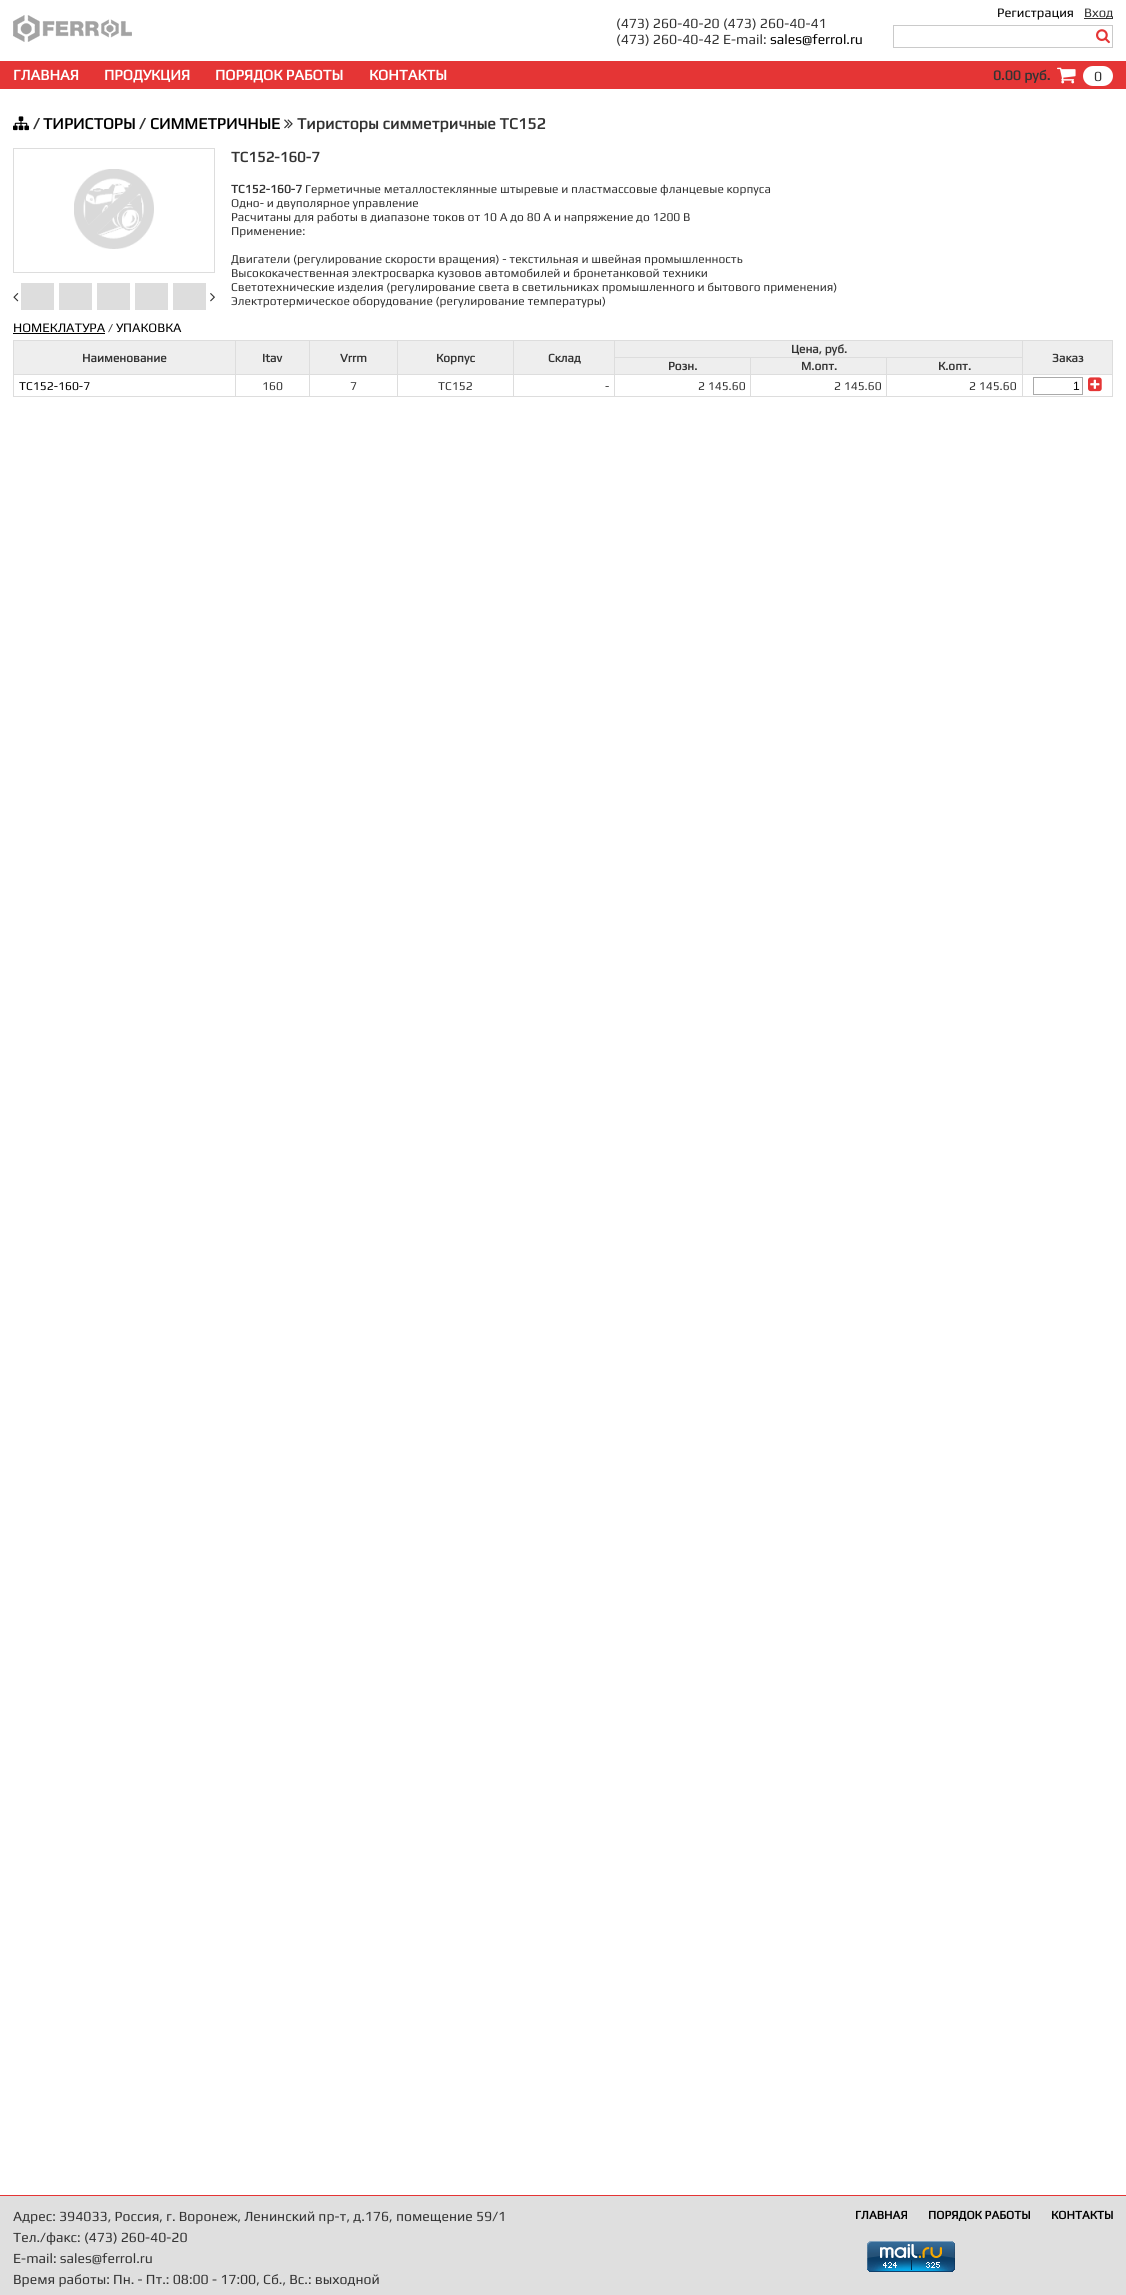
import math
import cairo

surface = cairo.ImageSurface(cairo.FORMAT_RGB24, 1126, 2295)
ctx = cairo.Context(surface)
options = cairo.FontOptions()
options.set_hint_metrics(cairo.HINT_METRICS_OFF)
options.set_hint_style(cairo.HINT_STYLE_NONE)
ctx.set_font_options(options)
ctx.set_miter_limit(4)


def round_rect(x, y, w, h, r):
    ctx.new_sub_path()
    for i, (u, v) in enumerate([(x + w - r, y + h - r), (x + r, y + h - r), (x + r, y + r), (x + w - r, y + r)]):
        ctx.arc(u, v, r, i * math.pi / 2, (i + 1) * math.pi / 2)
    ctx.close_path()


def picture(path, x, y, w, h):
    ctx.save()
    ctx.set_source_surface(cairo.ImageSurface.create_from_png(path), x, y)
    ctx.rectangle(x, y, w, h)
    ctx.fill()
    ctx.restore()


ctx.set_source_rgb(1, 1, 1)
ctx.paint()
ctx.select_font_face("Play")
ctx.set_font_size(13)
ctx.set_source_rgb(0, 0, 0)
ctx.move_to(997, 17)
ctx.show_text("Регистрация")
ctx.set_source_rgb(0.2, 0.2, 0.2)
ctx.rectangle(1084, 18, 29, 1)
ctx.fill()
ctx.move_to(1084, 17)
ctx.show_text("Вход")
picture("img1.png", 13, 15, 119, 27)
ctx.set_font_size(14)
ctx.move_to(616, 28)
ctx.show_text("(473) 260-40-20 (473) 260-40-41")
ctx.move_to(616, 44)
ctx.show_text("(473) 260-40-42 E-mail:")
ctx.set_source_rgb(0, 0, 0)
ctx.move_to(770, 44)
ctx.show_text("sales@ferrol.ru")
ctx.rectangle(893.5, 25.5, 219, 22)
ctx.set_source_rgb(0.792, 0.792, 0.792)
ctx.set_line_width(1)
ctx.stroke()
picture("img2.png", 1096, 29, 14, 15)
ctx.set_source_rgb(0.898, 0.208, 0.208)
ctx.rectangle(0, 61, 1126, 28)
ctx.fill()
ctx.select_font_face("Play", cairo.FONT_SLANT_NORMAL, cairo.FONT_WEIGHT_BOLD)
ctx.set_font_size(15)
ctx.set_source_rgb(1, 1, 1)
ctx.move_to(13, 80)
ctx.show_text("ГЛАВНАЯ")
ctx.move_to(104, 80)
ctx.show_text("ПРОДУКЦИЯ")
ctx.move_to(215, 80)
ctx.show_text("ПОРЯДОК РАБОТЫ")
ctx.move_to(369, 80)
ctx.show_text("КОНТАКТЫ")
ctx.set_font_size(14)
ctx.set_source_rgb(0.2, 0.2, 0.2)
ctx.move_to(993, 80)
ctx.show_text("0.00 руб.")
picture("img3.png", 1057, 67, 19, 17)
ctx.set_source_rgb(1, 1, 1)
round_rect(1083, 66, 30, 20, 10)
ctx.fill()
ctx.select_font_face("Play")
ctx.set_source_rgb(0.2, 0.2, 0.2)
ctx.move_to(1094, 81)
ctx.show_text("0")
picture("img4.png", 13, 116, 16, 15)
ctx.select_font_face("Play", cairo.FONT_SLANT_NORMAL, cairo.FONT_WEIGHT_BOLD)
ctx.set_font_size(16)
ctx.move_to(33, 129)
ctx.show_text("/")
ctx.set_source_rgb(0, 0, 0)
ctx.move_to(43, 129)
ctx.show_text("ТИРИСТОРЫ")
ctx.set_source_rgb(0.2, 0.2, 0.2)
ctx.move_to(139, 129)
ctx.show_text("/")
ctx.set_source_rgb(0, 0, 0)
ctx.move_to(150, 129)
ctx.show_text("СИММЕТРИЧНЫЕ")
picture("img5.png", 284, 119, 9, 10)
ctx.set_source_rgb(0.2, 0.2, 0.2)
ctx.move_to(297, 129)
ctx.show_text("Тиристоры симметричные ТС152")
ctx.rectangle(13.5, 148.5, 201, 124)
ctx.set_source_rgb(0.867, 0.867, 0.867)
ctx.stroke()
picture("img6.png", 74, 169, 80, 80)
picture("img7.png", 13, 293, 6, 9)
ctx.rectangle(21, 283, 33, 27)
ctx.fill()
ctx.rectangle(59, 283, 33, 27)
ctx.fill()
ctx.rectangle(97, 283, 33, 27)
ctx.fill()
ctx.rectangle(135, 283, 33, 27)
ctx.fill()
ctx.rectangle(173, 283, 33, 27)
ctx.fill()
picture("img8.png", 210, 293, 5, 9)
ctx.set_font_size(15)
ctx.set_source_rgb(0.2, 0.2, 0.2)
ctx.move_to(231, 162)
ctx.show_text("ТС152-160-7")
ctx.set_font_size(12)
ctx.move_to(231, 193)
ctx.show_text("ТС152-160-7")
ctx.select_font_face("Play")
ctx.move_to(305, 193)
ctx.show_text("Герметичные металлостеклянные штыревые и пластмассовые фланцевые корпуса")
ctx.move_to(231, 207)
ctx.show_text("Одно- и двуполярное управление")
ctx.move_to(231, 221)
ctx.show_text("Расчитаны для работы в диапазоне токов от 10 А до 80 А и напряжение до 1200 В")
ctx.move_to(231, 235)
ctx.show_text("Применение:")
ctx.move_to(231, 263)
ctx.show_text("Двигатели (регулирование скорости вращения) - текстильная и швейная промышленность")
ctx.move_to(231, 277)
ctx.show_text("Высококачественная электросварка кузовов автомобилей и бронетанковой техники")
ctx.move_to(231, 291)
ctx.show_text("Светотехнические изделия (регулирование света в светильниках промышленного и бытового применения)")
ctx.move_to(231, 305)
ctx.show_text("Электротермическое оборудование (регулирование температуры)")
ctx.set_font_size(13)
ctx.set_source_rgb(0, 0, 0)
ctx.move_to(13, 332)
ctx.show_text("НОМЕКЛАТУРА")
ctx.rectangle(13, 333, 92, 1)
ctx.fill()
ctx.set_font_size(12)
ctx.set_source_rgb(0.2, 0.2, 0.2)
ctx.move_to(108, 332)
ctx.show_text("/")
ctx.set_font_size(13)
ctx.set_source_rgb(0, 0, 0)
ctx.move_to(116, 332)
ctx.show_text("УПАКОВКА")
ctx.set_source_rgb(0.933, 0.933, 0.933)
ctx.rectangle(14, 341, 1098, 33)
ctx.fill()
ctx.set_source_rgb(0.867, 0.867, 0.867)
ctx.rectangle(1022, 340, 91, 1)
ctx.fill()
ctx.rectangle(886, 357, 137, 1)
ctx.fill()
ctx.rectangle(1022, 374, 91, 1)
ctx.fill()
ctx.rectangle(1112, 374, 1, 23)
ctx.fill()
ctx.rectangle(1022, 396, 91, 1)
ctx.fill()
ctx.rectangle(1022, 374, 1, 23)
ctx.fill()
ctx.rectangle(886, 374, 137, 1)
ctx.fill()
ctx.rectangle(1022, 340, 1, 35)
ctx.fill()
ctx.rectangle(614, 340, 409, 1)
ctx.fill()
ctx.rectangle(886, 396, 137, 1)
ctx.fill()
ctx.rectangle(886, 374, 1, 23)
ctx.fill()
ctx.rectangle(750, 374, 137, 1)
ctx.fill()
ctx.rectangle(886, 357, 1, 18)
ctx.fill()
ctx.rectangle(750, 357, 137, 1)
ctx.fill()
ctx.rectangle(750, 396, 137, 1)
ctx.fill()
ctx.rectangle(750, 374, 1, 23)
ctx.fill()
ctx.rectangle(614, 374, 137, 1)
ctx.fill()
ctx.rectangle(750, 357, 1, 18)
ctx.fill()
ctx.rectangle(614, 357, 137, 1)
ctx.fill()
ctx.rectangle(614, 396, 137, 1)
ctx.fill()
ctx.rectangle(614, 374, 1, 23)
ctx.fill()
ctx.rectangle(513, 374, 102, 1)
ctx.fill()
ctx.rectangle(614, 357, 1, 18)
ctx.fill()
ctx.rectangle(614, 340, 1, 18)
ctx.fill()
ctx.select_font_face("Play", cairo.FONT_SLANT_NORMAL, cairo.FONT_WEIGHT_BOLD)
ctx.set_font_size(12)
ctx.set_source_rgb(0.2, 0.2, 0.2)
ctx.move_to(791, 353)
ctx.show_text("Цена, руб.")
ctx.set_source_rgb(0.867, 0.867, 0.867)
ctx.rectangle(513, 340, 102, 1)
ctx.fill()
ctx.rectangle(513, 396, 102, 1)
ctx.fill()
ctx.rectangle(513, 374, 1, 23)
ctx.fill()
ctx.rectangle(397, 374, 117, 1)
ctx.fill()
ctx.rectangle(513, 340, 1, 35)
ctx.fill()
ctx.rectangle(397, 340, 117, 1)
ctx.fill()
ctx.rectangle(397, 396, 117, 1)
ctx.fill()
ctx.rectangle(397, 374, 1, 23)
ctx.fill()
ctx.rectangle(309, 374, 89, 1)
ctx.fill()
ctx.rectangle(397, 340, 1, 35)
ctx.fill()
ctx.rectangle(309, 340, 89, 1)
ctx.fill()
ctx.rectangle(309, 396, 89, 1)
ctx.fill()
ctx.rectangle(309, 374, 1, 23)
ctx.fill()
ctx.rectangle(235, 374, 75, 1)
ctx.fill()
ctx.rectangle(309, 340, 1, 35)
ctx.fill()
ctx.rectangle(235, 340, 75, 1)
ctx.fill()
ctx.rectangle(235, 396, 75, 1)
ctx.fill()
ctx.rectangle(235, 374, 1, 23)
ctx.fill()
ctx.rectangle(13, 374, 223, 1)
ctx.fill()
ctx.rectangle(235, 340, 1, 35)
ctx.fill()
ctx.rectangle(13, 340, 223, 1)
ctx.fill()
ctx.rectangle(13, 396, 223, 1)
ctx.fill()
ctx.rectangle(13, 374, 1, 23)
ctx.fill()
ctx.rectangle(13, 340, 1, 35)
ctx.fill()
ctx.set_source_rgb(0.2, 0.2, 0.2)
ctx.move_to(82, 362)
ctx.show_text("Наименование")
ctx.move_to(262, 362)
ctx.show_text("Itav")
ctx.move_to(340, 362)
ctx.show_text("Vrrm")
ctx.move_to(436, 362)
ctx.show_text("Корпус")
ctx.move_to(548, 362)
ctx.show_text("Склад")
ctx.set_source_rgb(0.867, 0.867, 0.867)
ctx.rectangle(1112, 340, 1, 35)
ctx.fill()
ctx.set_source_rgb(0.2, 0.2, 0.2)
ctx.move_to(1052, 362)
ctx.show_text("Заказ")
ctx.move_to(668, 370)
ctx.show_text("Розн.")
ctx.move_to(801, 370)
ctx.show_text("М.опт.")
ctx.move_to(938, 370)
ctx.show_text("К.опт.")
ctx.select_font_face("Play")
ctx.set_source_rgb(0, 0, 0)
ctx.move_to(19, 390)
ctx.show_text("ТС152-160-7")
ctx.set_source_rgb(0.2, 0.2, 0.2)
ctx.move_to(262, 390)
ctx.show_text("160")
ctx.move_to(350, 390)
ctx.show_text("7")
ctx.move_to(438, 390)
ctx.show_text("ТС152")
ctx.move_to(605, 390)
ctx.show_text("-")
ctx.move_to(698, 390)
ctx.show_text("2 145.60")
ctx.move_to(834, 390)
ctx.show_text("2 145.60")
ctx.move_to(969, 390)
ctx.show_text("2 145.60")
ctx.rectangle(1033.5, 377.5, 49, 17)
ctx.set_source_rgb(0.667, 0.667, 0.667)
ctx.stroke()
ctx.select_font_face("Liberation Sans")
ctx.set_source_rgb(0, 0, 0)
ctx.move_to(1073, 390)
ctx.show_text("1")
picture("img9.png", 1088, 377, 14, 15)
ctx.set_source_rgb(0.875, 0.875, 0.875)
ctx.rectangle(0, 2196, 1126, 99)
ctx.fill()
ctx.set_source_rgb(0.898, 0.208, 0.208)
ctx.rectangle(0, 2195, 1126, 1)
ctx.fill()
ctx.select_font_face("Play")
ctx.set_font_size(14)
ctx.set_source_rgb(0.2, 0.2, 0.2)
ctx.move_to(13, 2221)
ctx.show_text("Адрес: 394033, Россия, г. Воронеж, Ленинский пр-т, д.176, помещение 59/1")
ctx.move_to(13, 2242)
ctx.show_text("Тел./факс: (473) 260-40-20")
ctx.move_to(13, 2263)
ctx.show_text("E-mail: sales@ferrol.ru")
ctx.move_to(13, 2284)
ctx.show_text("Время работы: Пн. - Пт.: 08:00 - 17:00, Сб., Вс.: выходной")
ctx.select_font_face("Play", cairo.FONT_SLANT_NORMAL, cairo.FONT_WEIGHT_BOLD)
ctx.set_font_size(12)
ctx.set_source_rgb(0, 0, 0)
ctx.move_to(855, 2219)
ctx.show_text("ГЛАВНАЯ")
ctx.move_to(928, 2219)
ctx.show_text("ПОРЯДОК РАБОТЫ")
ctx.move_to(1051, 2219)
ctx.show_text("КОНТАКТЫ")
picture("img10.png", 867, 2241, 88, 31)
surface.write_to_png("page.png")
